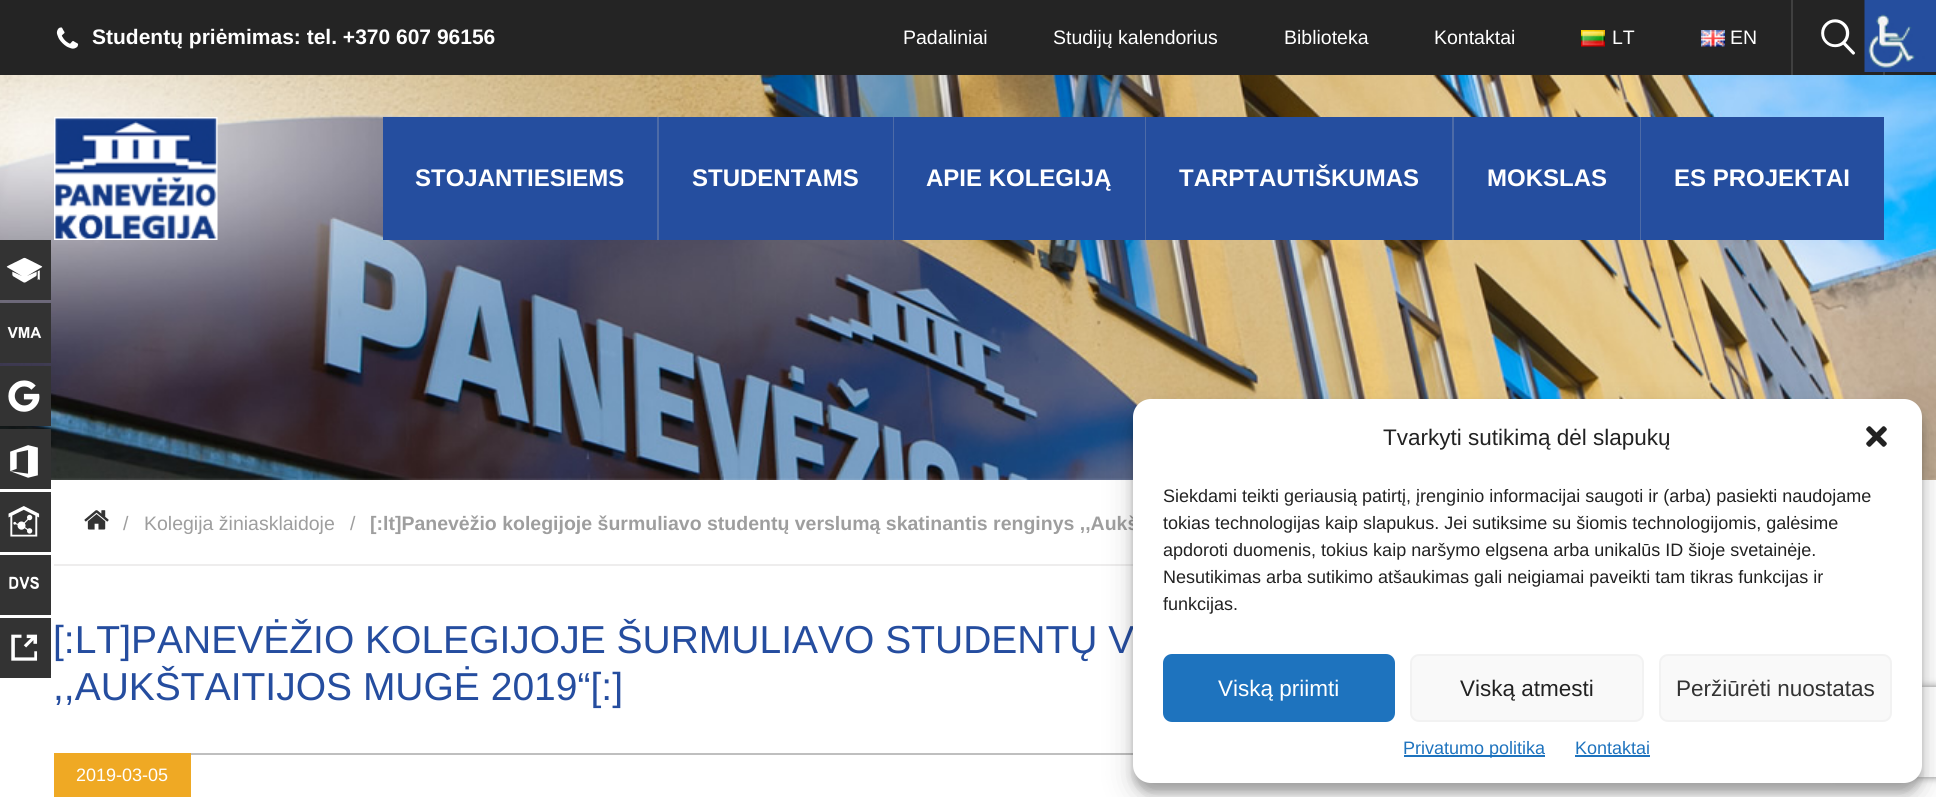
import math
import cairo

surface = cairo.ImageSurface(cairo.FORMAT_RGB24, 1936, 797)
ctx = cairo.Context(surface)
options = cairo.FontOptions()
options.set_hint_metrics(cairo.HINT_METRICS_OFF)
options.set_hint_style(cairo.HINT_STYLE_NONE)
ctx.set_font_options(options)
ctx.set_miter_limit(4)


def round_rect(x, y, w, h, r):
    ctx.new_sub_path()
    for i, (u, v) in enumerate([(x + w - r, y + h - r), (x + r, y + h - r), (x + r, y + r), (x + w - r, y + r)]):
        ctx.arc(u, v, r, i * math.pi / 2, (i + 1) * math.pi / 2)
    ctx.close_path()


def shadow(x, y, w, h, r, blur, alpha):
    ctx.push_group_with_content(cairo.CONTENT_ALPHA)
    ctx.set_operator(cairo.OPERATOR_SOURCE)
    for i in range(15, -16, -2):
        e = blur * i / 6
        if min(w, h) + 2 * e > 0:
            ctx.set_source_rgba(0, 0, 0, alpha * math.erfc((i - 1) / 8.5) / 2)
            round_rect(x - e, y - e, w + 2 * e, h + 2 * e, max(0, min(r + e + blur * .6, min(w, h) / 2 + e)))
            ctx.fill()
    ctx.mask(ctx.pop_group())


def picture(path, x, y, w, h):
    ctx.save()
    ctx.set_source_surface(cairo.ImageSurface.create_from_png(path), x, y)
    ctx.rectangle(x, y, w, h)
    ctx.fill()
    ctx.restore()


ctx.set_source_rgb(1, 1, 1)
ctx.paint()
picture("img1.png", 0, 75, 1936, 405)
ctx.set_source_rgb(0.141, 0.141, 0.141)
ctx.rectangle(0, 0, 1936, 75)
ctx.fill()
picture("img2.png", 56, 27, 23, 22)
ctx.select_font_face("Liberation Sans", cairo.FONT_SLANT_NORMAL, cairo.FONT_WEIGHT_BOLD)
ctx.set_font_size(21)
ctx.set_source_rgb(1, 1, 1)
ctx.move_to(92, 44)
ctx.show_text("Studentų priėmimas: tel. +370 607 96156")
ctx.select_font_face("Liberation Sans")
ctx.set_font_size(19.5)
ctx.move_to(903, 44)
ctx.show_text("Padaliniai")
ctx.move_to(1053, 44)
ctx.show_text("Studijų kalendorius")
ctx.move_to(1284, 44)
ctx.show_text("Biblioteka")
ctx.move_to(1434, 44)
ctx.show_text("Kontaktai")
picture("img3.png", 1581, 30, 24, 17)
ctx.move_to(1612, 44)
ctx.show_text("LT")
picture("img4.png", 1701, 30, 24, 17)
ctx.move_to(1730, 44)
ctx.show_text("EN")
ctx.set_source_rgb(0.251, 0.251, 0.251)
ctx.rectangle(1883, 72, 2, 3)
ctx.fill()
ctx.rectangle(1791, 0, 2, 75)
ctx.fill()
picture("img5.png", 1821, 19, 34, 36)
picture("img6.png", 54, 117, 164, 123)
ctx.set_source_rgb(0.145, 0.306, 0.624)
ctx.rectangle(383, 117, 274, 123)
ctx.fill()
ctx.select_font_face("Liberation Sans", cairo.FONT_SLANT_NORMAL, cairo.FONT_WEIGHT_BOLD)
ctx.set_font_size(24)
ctx.set_source_rgb(1, 1, 1)
ctx.move_to(415, 186)
ctx.show_text("STOJANTIESIEMS")
ctx.set_source_rgb(0.302, 0.42, 0.655)
ctx.rectangle(657, 117, 2, 123)
ctx.fill()
ctx.set_source_rgb(0.145, 0.306, 0.624)
ctx.rectangle(659, 117, 234, 123)
ctx.fill()
ctx.set_source_rgb(1, 1, 1)
ctx.move_to(692, 186)
ctx.show_text("STUDENTAMS")
ctx.set_source_rgb(0.302, 0.42, 0.655)
ctx.rectangle(893, 117, 1, 123)
ctx.fill()
ctx.set_source_rgb(0.145, 0.306, 0.624)
ctx.rectangle(894, 117, 251, 123)
ctx.fill()
ctx.set_source_rgb(1, 1, 1)
ctx.move_to(926, 186)
ctx.show_text("APIE KOLEGIJĄ")
ctx.set_source_rgb(0.302, 0.42, 0.655)
ctx.rectangle(1145, 117, 1, 123)
ctx.fill()
ctx.set_source_rgb(0.145, 0.306, 0.624)
ctx.rectangle(1146, 117, 306, 123)
ctx.fill()
ctx.set_source_rgb(1, 1, 1)
ctx.move_to(1179, 186)
ctx.show_text("TARPTAUTIŠKUMAS")
ctx.set_source_rgb(0.302, 0.42, 0.655)
ctx.rectangle(1452, 117, 2, 123)
ctx.fill()
ctx.set_source_rgb(0.145, 0.306, 0.624)
ctx.rectangle(1454, 117, 186, 123)
ctx.fill()
ctx.set_source_rgb(1, 1, 1)
ctx.move_to(1487, 186)
ctx.show_text("MOKSLAS")
ctx.set_source_rgb(0.302, 0.42, 0.655)
ctx.rectangle(1640, 117, 1, 123)
ctx.fill()
ctx.set_source_rgb(0.145, 0.306, 0.624)
ctx.rectangle(1641, 117, 243, 123)
ctx.fill()
ctx.set_source_rgb(1, 1, 1)
ctx.move_to(1674, 186)
ctx.show_text("ES PROJEKTAI")
picture("img7.png", 1864, 0, 72, 72)
ctx.set_source_rgb(0.2, 0.2, 0.2)
ctx.rectangle(0, 240, 51, 60)
ctx.fill()
picture("img8.png", 6, 257, 37, 26)
ctx.rectangle(0, 303, 51, 60)
ctx.fill()
picture("img9.png", 7, 327, 35, 11)
ctx.rectangle(0, 366, 51, 60)
ctx.fill()
picture("img10.png", 8, 380, 32, 32)
ctx.rectangle(0, 429, 51, 60)
ctx.fill()
picture("img11.png", 10, 445, 28, 33)
ctx.rectangle(0, 492, 51, 60)
ctx.fill()
picture("img12.png", 8, 506, 32, 31)
ctx.rectangle(0, 555, 51, 60)
ctx.fill()
picture("img13.png", 9, 576, 30, 13)
ctx.rectangle(0, 618, 51, 60)
ctx.fill()
picture("img14.png", 11, 634, 27, 27)
ctx.set_source_rgb(0.933, 0.929, 0.929)
ctx.rectangle(54, 564, 1079, 2)
ctx.fill()
picture("img15.png", 84, 510, 25, 20)
ctx.select_font_face("Liberation Sans")
ctx.set_font_size(19.5)
ctx.set_source_rgb(0.62, 0.62, 0.62)
ctx.move_to(123, 530)
ctx.show_text("/")
ctx.move_to(144, 530)
ctx.show_text("Kolegija žiniasklaidoje")
ctx.move_to(350, 530)
ctx.show_text("/")
ctx.select_font_face("Liberation Sans", cairo.FONT_SLANT_NORMAL, cairo.FONT_WEIGHT_BOLD)
ctx.move_to(370, 530)
ctx.show_text("[:lt]Panevėžio kolegijoje šurmuliavo studentų verslumą skatinantis renginys ,,Aukš")
ctx.select_font_face("Liberation Sans")
ctx.set_font_size(39)
ctx.set_source_rgb(0.145, 0.302, 0.624)
ctx.move_to(53, 653)
ctx.show_text("[:LT]PANEVĖŽIO KOLEGIJOJE ŠURMULIAVO STUDENTŲ V")
ctx.move_to(53, 700)
ctx.show_text(",,AUKŠTAITIJOS MUGĖ 2019“[:]")
ctx.set_source_rgb(0.749, 0.749, 0.749)
ctx.rectangle(191, 753, 942, 2)
ctx.fill()
ctx.set_source_rgb(0.937, 0.663, 0.141)
ctx.rectangle(54, 753, 137, 44)
ctx.fill()
ctx.set_font_size(18)
ctx.set_source_rgb(1, 1, 1)
ctx.move_to(76, 781)
ctx.show_text("2019-03-05")
ctx.set_source_rgb(0, 0, 0)
shadow(1133, 408, 789, 384, 18, 4.5, 0.23)
shadow(1133, 414, 789, 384, 18, 15, 0.19)
ctx.save()
ctx.set_fill_rule(cairo.FILL_RULE_EVEN_ODD)
ctx.new_path()
ctx.move_to(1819, 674)
ctx.line_to(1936, 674)
ctx.line_to(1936, 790)
ctx.line_to(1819, 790)
ctx.close_path()
ctx.move_to(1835, 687)
ctx.line_to(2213, 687)
ctx.curve_to(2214.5, 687, 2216, 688.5, 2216, 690)
ctx.line_to(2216, 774)
ctx.curve_to(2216, 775.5, 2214.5, 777, 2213, 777)
ctx.line_to(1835, 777)
ctx.curve_to(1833.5, 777, 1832, 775.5, 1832, 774)
ctx.line_to(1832, 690)
ctx.curve_to(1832, 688.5, 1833.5, 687, 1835, 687)
ctx.close_path()
ctx.clip()
ctx.set_source_rgb(0.502, 0.502, 0.502)
shadow(1832, 687, 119, 90, 3, 4, 1)
ctx.restore()
ctx.set_source_rgb(1, 1, 1)
round_rect(1133, 399, 789, 384, 18)
ctx.fill()
ctx.set_font_size(22.5)
ctx.set_source_rgb(0.133, 0.133, 0.133)
ctx.move_to(1383, 445)
ctx.show_text("Tvarkyti sutikimą dėl slapukų")
picture("img16.png", 1866, 426, 21, 21)
ctx.set_font_size(18)
ctx.move_to(1163, 502)
ctx.show_text("Siekdami teikti geriausią patirtį, įrenginio informacijai saugoti ir (arba) pasiekti naudojame")
ctx.move_to(1163, 529)
ctx.show_text("tokias technologijas kaip slapukus. Jei sutiksime su šiomis technologijomis, galėsime")
ctx.move_to(1163, 556)
ctx.show_text("apdoroti duomenis, tokius kaip naršymo elgsena arba unikalūs ID šioje svetainėje.")
ctx.move_to(1163, 583)
ctx.show_text("Nesutikimas arba sutikimo atšaukimas gali neigiamai paveikti tam tikras funkcijas ir")
ctx.move_to(1163, 610)
ctx.show_text("funkcijas.")
ctx.set_source_rgb(0.118, 0.451, 0.745)
round_rect(1164, 655, 230, 66, 8)
ctx.fill_preserve()
ctx.stroke()
ctx.set_font_size(22.5)
ctx.set_source_rgb(1, 1, 1)
ctx.move_to(1218, 696)
ctx.show_text("Viską priimti")
ctx.set_source_rgb(0.976, 0.976, 0.976)
round_rect(1411, 655, 232, 66, 8)
ctx.fill_preserve()
ctx.set_source_rgb(0.949, 0.949, 0.949)
ctx.stroke()
ctx.set_source_rgb(0.133, 0.133, 0.133)
ctx.move_to(1460, 696)
ctx.show_text("Viską atmesti")
ctx.set_source_rgb(0.976, 0.976, 0.976)
round_rect(1660, 655, 231, 66, 8)
ctx.fill_preserve()
ctx.set_source_rgb(0.949, 0.949, 0.949)
ctx.stroke()
ctx.set_source_rgb(0.2, 0.2, 0.2)
ctx.move_to(1676, 696)
ctx.show_text("Peržiūrėti nuostatas")
ctx.set_source_rgb(0.118, 0.451, 0.745)
ctx.rectangle(1404, 755, 141, 2)
ctx.fill()
ctx.set_font_size(18)
ctx.move_to(1403, 754)
ctx.show_text("Privatumo politika")
ctx.move_to(1575, 754)
ctx.show_text("Kontaktai")
ctx.rectangle(1575, 755, 75, 2)
ctx.fill()
surface.write_to_png("page.png")
